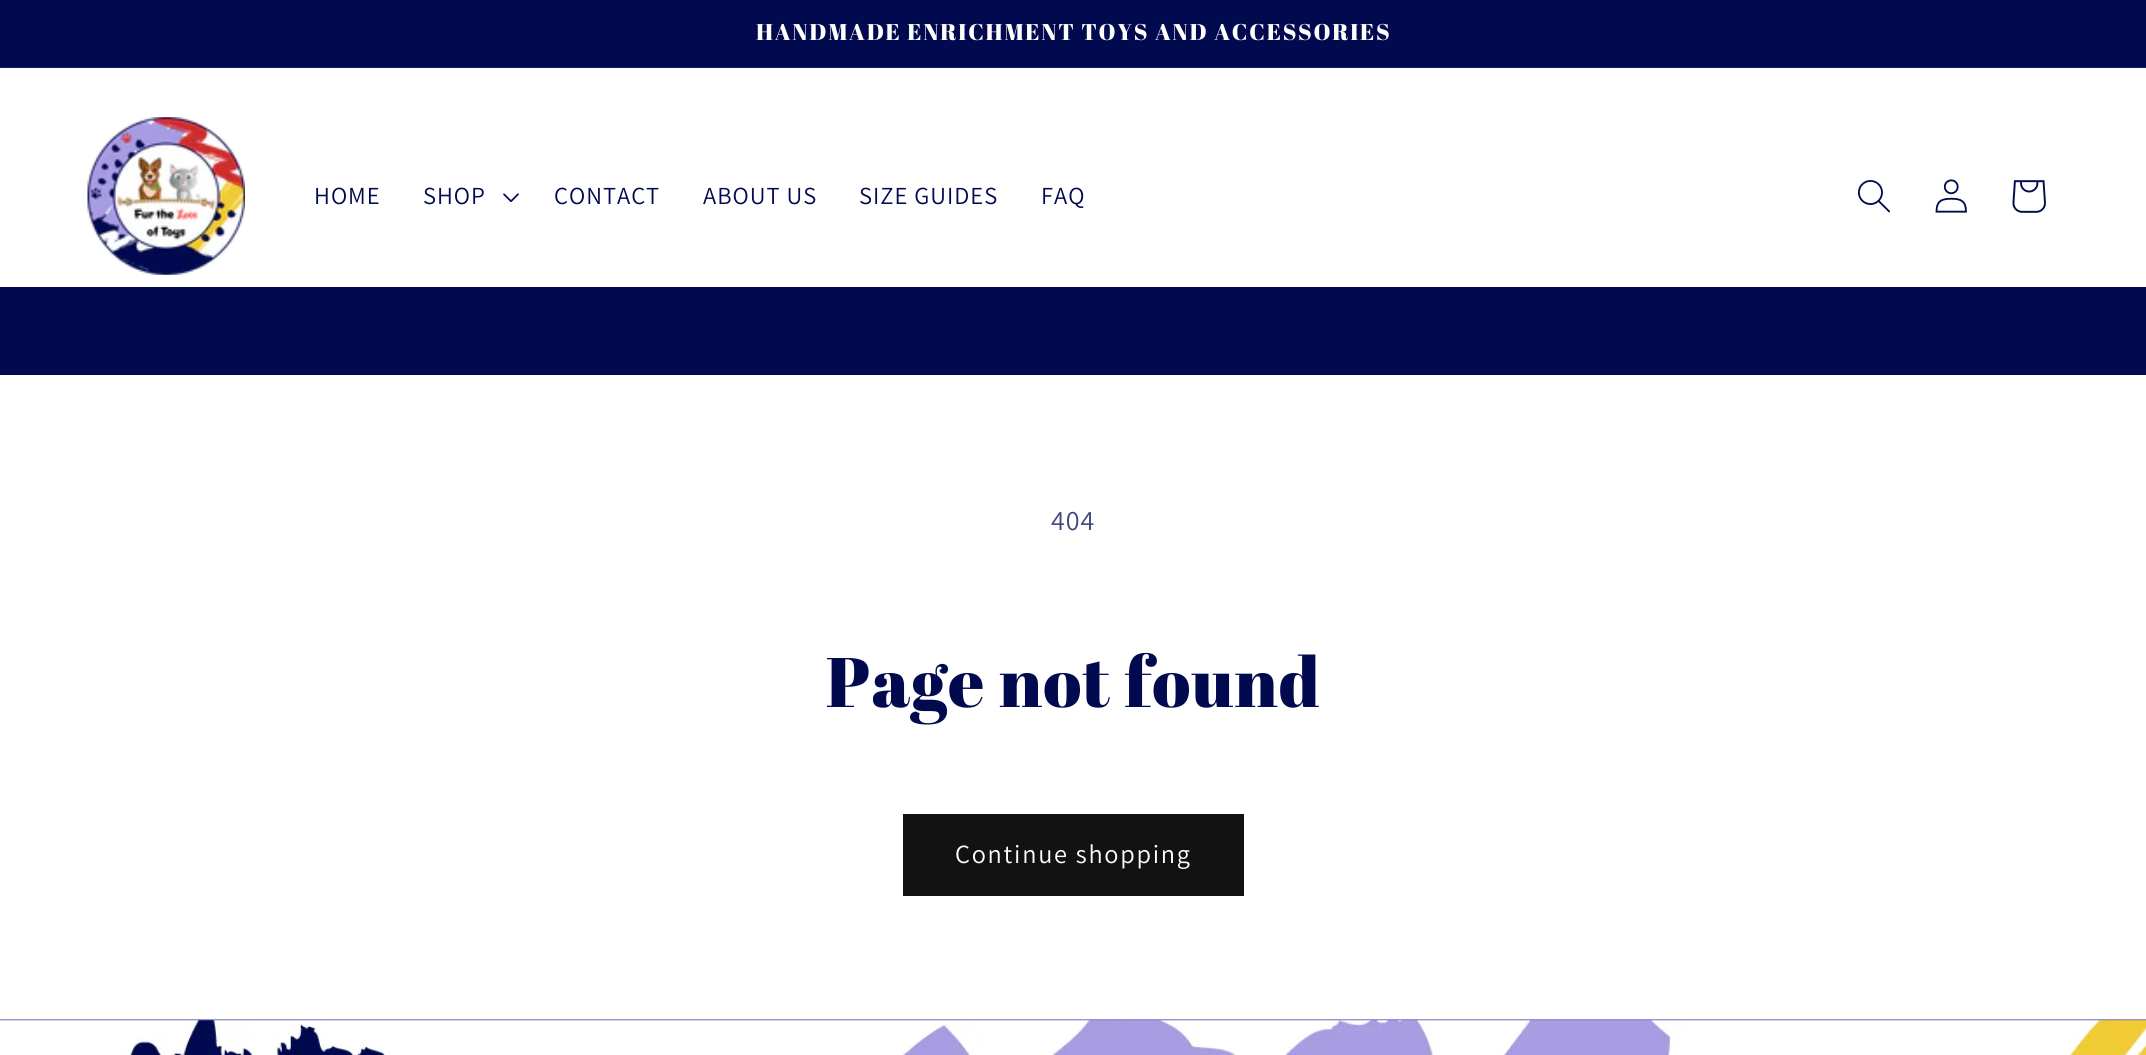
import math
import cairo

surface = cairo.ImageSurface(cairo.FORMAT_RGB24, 2146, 1055)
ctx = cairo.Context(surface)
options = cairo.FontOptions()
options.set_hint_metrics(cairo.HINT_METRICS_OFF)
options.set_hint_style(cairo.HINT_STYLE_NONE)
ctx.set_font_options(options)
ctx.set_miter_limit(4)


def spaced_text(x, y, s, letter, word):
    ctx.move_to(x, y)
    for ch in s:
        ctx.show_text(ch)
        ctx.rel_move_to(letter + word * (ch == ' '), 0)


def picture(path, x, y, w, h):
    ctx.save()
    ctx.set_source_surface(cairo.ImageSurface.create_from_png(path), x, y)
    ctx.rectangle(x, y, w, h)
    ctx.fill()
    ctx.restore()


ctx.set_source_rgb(1, 1, 1)
ctx.paint()
ctx.set_source_rgb(0.004, 0.039, 0.31)
ctx.rectangle(0, 0, 2146, 67)
ctx.fill()
ctx.set_source_rgb(0.082, 0.118, 0.365)
ctx.rectangle(0, 67, 2146, 1)
ctx.fill()
ctx.select_font_face("Abril Fatface")
ctx.set_font_size(22.75)
ctx.set_source_rgb(1, 1, 1)
spaced_text(756, 40, "HANDMADE ENRICHMENT TOYS AND ACCESSORIES", 1.75, 0)
picture("img1.png", 87, 117, 158, 158)
ctx.select_font_face("Assistant")
ctx.set_font_size(24.5)
ctx.set_source_rgb(0.004, 0.039, 0.31)
spaced_text(314, 204, "HOME", 1, 0)
spaced_text(423, 204, "SHOP", 1, 0)
picture("img2.png", 503, 193, 16, 9)
spaced_text(554, 204, "CONTACT", 1, 0)
spaced_text(703, 204, "ABOUT US", 1, 0)
spaced_text(859, 204, "SIZE GUIDES", 1, 0)
spaced_text(1041, 204, "FAQ", 1, 0)
picture("img3.png", 1858, 180, 32, 33)
picture("img4.png", 1935, 179, 32, 34)
picture("img5.png", 2012, 180, 34, 33)
ctx.rectangle(0, 287, 2146, 88)
ctx.fill()
ctx.set_font_size(28)
ctx.set_source_rgb(0.255, 0.278, 0.482)
spaced_text(1051, 530, "404", 1, 0)
ctx.select_font_face("Abril Fatface")
ctx.set_font_size(70)
ctx.set_source_rgb(0.004, 0.039, 0.31)
spaced_text(826, 707, "Page not found", 1, 0)
ctx.set_source_rgb(0.071, 0.071, 0.071)
ctx.rectangle(903, 814, 341, 82)
ctx.fill()
ctx.select_font_face("Assistant")
ctx.set_font_size(26.25)
ctx.set_source_rgb(1, 1, 1)
spaced_text(955, 863, "Continue shopping", 1.75, 0)
ctx.set_source_rgb(0.659, 0.612, 0.89)
ctx.rectangle(0, 1019, 2146, 2)
ctx.fill()
picture("img6.png", 0, 1020, 2146, 35)
ctx.set_source_rgba(0.004, 0.039, 0.31, 0.08)
ctx.rectangle(0, 1019, 2146, 2)
ctx.fill()
surface.write_to_png("page.png")
